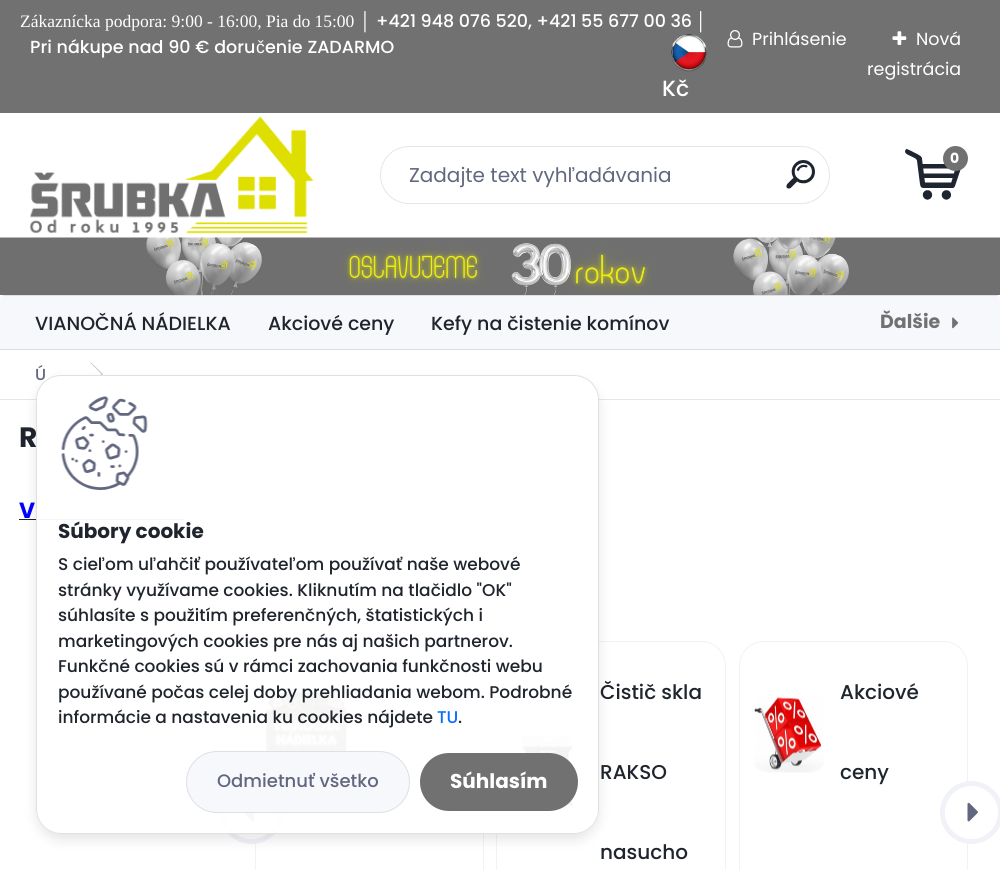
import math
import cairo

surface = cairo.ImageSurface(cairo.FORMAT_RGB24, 1000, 870)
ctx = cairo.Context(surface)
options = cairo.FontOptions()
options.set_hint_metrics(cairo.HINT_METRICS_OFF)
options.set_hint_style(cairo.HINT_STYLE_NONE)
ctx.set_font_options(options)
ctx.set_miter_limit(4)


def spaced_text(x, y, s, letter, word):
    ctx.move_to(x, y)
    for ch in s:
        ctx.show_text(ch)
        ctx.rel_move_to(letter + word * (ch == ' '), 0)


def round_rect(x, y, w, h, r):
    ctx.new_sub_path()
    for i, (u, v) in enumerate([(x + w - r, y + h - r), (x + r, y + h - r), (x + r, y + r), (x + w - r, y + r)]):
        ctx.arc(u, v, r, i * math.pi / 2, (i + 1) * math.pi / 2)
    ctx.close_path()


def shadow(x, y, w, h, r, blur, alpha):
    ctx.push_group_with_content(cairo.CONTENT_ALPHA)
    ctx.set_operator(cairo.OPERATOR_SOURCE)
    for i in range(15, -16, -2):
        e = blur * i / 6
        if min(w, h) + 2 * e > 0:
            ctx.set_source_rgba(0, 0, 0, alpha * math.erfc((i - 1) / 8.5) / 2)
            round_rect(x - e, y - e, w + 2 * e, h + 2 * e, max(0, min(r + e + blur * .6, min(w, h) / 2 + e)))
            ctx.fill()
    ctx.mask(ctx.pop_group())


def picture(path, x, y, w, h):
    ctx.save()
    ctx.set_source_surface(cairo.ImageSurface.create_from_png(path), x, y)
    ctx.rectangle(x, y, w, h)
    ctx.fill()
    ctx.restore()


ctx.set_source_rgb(1, 1, 1)
ctx.paint()
ctx.set_source_rgb(0.443, 0.443, 0.443)
ctx.rectangle(0, 0, 1000, 113)
ctx.fill()
ctx.select_font_face("Liberation Serif")
ctx.set_font_size(17.5)
ctx.set_source_rgb(1, 1, 1)
ctx.move_to(20, 27)
ctx.show_text("Zákaznícka podpora: 9:00 - 16:00, Pia do 15:00 │")
ctx.select_font_face("Poppins Medium")
ctx.move_to(376, 27)
ctx.show_text("+421 948 076 520, +421 55 677 00 36")
ctx.select_font_face("Liberation Sans")
ctx.move_to(696, 27)
ctx.show_text("│")
ctx.select_font_face("Poppins Medium")
spaced_text(30, 53, "Pri nákupe nad 90 € doru", 0, 0.25)
ctx.select_font_face("Liberation Sans")
ctx.move_to(256, 53)
ctx.show_text("č")
ctx.select_font_face("Poppins Medium")
spaced_text(265, 53, "enie ZADARMO", 0, 0.25)
picture("img1.png", 671, 34, 36, 38)
ctx.set_font_size(22)
ctx.move_to(662, 96)
ctx.show_text("Kč")
picture("img2.png", 727, 30, 16, 18)
ctx.select_font_face("Poppins")
ctx.set_font_size(17.5)
ctx.move_to(752, 45)
ctx.show_text("Prihlásenie")
picture("img3.png", 892, 31, 15, 14)
ctx.move_to(916, 45)
ctx.show_text("Nová")
ctx.move_to(867, 75)
ctx.show_text("registrácia")
picture("img4.png", 30, 116, 284, 118)
picture("img5.png", 905, 149, 56, 51)
ctx.set_source_rgb(0.443, 0.443, 0.443)
ctx.arc(955.5, 158.5, 12.5, 0, 2 * math.pi)
ctx.fill()
ctx.select_font_face("Poppins", cairo.FONT_SLANT_NORMAL, cairo.FONT_WEIGHT_BOLD)
ctx.set_font_size(14)
ctx.set_source_rgb(1, 1, 1)
ctx.move_to(950, 163)
ctx.show_text("0")
round_rect(380.5, 146.5, 449, 57, 28.5)
ctx.set_source_rgb(0.902, 0.902, 0.902)
ctx.set_line_width(1)
ctx.stroke()
ctx.select_font_face("Poppins")
ctx.set_font_size(20)
ctx.set_source_rgb(0.384, 0.404, 0.502)
ctx.move_to(409, 182)
ctx.show_text("Zadajte text vyhľadávania")
picture("img6.png", 786, 160, 29, 29)
picture("img7.png", 0, 237, 1000, 58)
ctx.set_source_rgb(0.965, 0.969, 0.988)
ctx.new_path()
ctx.move_to(5, 295)
ctx.line_to(995, 295)
ctx.curve_to(998, 295, 1000, 297, 1000, 300)
ctx.line_to(1000, 350)
ctx.line_to(0, 350)
ctx.line_to(0, 300)
ctx.curve_to(0, 297, 2, 295, 5, 295)
ctx.close_path()
ctx.fill()
ctx.set_source_rgba(0, 0, 0, 0.1)
ctx.rectangle(3, 295, 995, 1)
ctx.fill()
ctx.set_source_rgb(0.867, 0.871, 0.89)
ctx.rectangle(0, 349, 1000, 1)
ctx.fill()
ctx.select_font_face("Poppins Medium")
ctx.set_font_size(19)
ctx.set_source_rgb(0.122, 0.141, 0.176)
ctx.move_to(35, 330)
ctx.show_text("VIANOČNÁ NÁDIELKA")
ctx.move_to(268, 330)
ctx.show_text("Akciové ceny")
ctx.move_to(431, 330)
ctx.show_text("Kefy na čistenie komínov")
ctx.select_font_face("Poppins", cairo.FONT_SLANT_NORMAL, cairo.FONT_WEIGHT_BOLD)
ctx.set_source_rgb(0.443, 0.443, 0.443)
ctx.move_to(880, 328)
ctx.show_text("Ďalšie")
picture("img8.png", 952, 317, 7, 12)
ctx.set_source_rgb(0.902, 0.902, 0.902)
ctx.rectangle(0, 399, 1000, 1)
ctx.fill()
ctx.select_font_face("Poppins Medium")
ctx.set_font_size(16)
ctx.set_source_rgb(0.384, 0.404, 0.502)
ctx.move_to(35, 380)
ctx.show_text("Ú")
ctx.set_source_rgb(0.765, 0.765, 0.765)
ctx.new_path()
ctx.move_to(90, 362.5)
ctx.line_to(91, 362.5)
ctx.line_to(103, 374)
ctx.line_to(101.5, 374)
ctx.close_path()
ctx.move_to(101.5, 374)
ctx.line_to(103, 374)
ctx.line_to(91, 386)
ctx.line_to(90, 386)
ctx.close_path()
ctx.fill()
ctx.select_font_face("Poppins", cairo.FONT_SLANT_NORMAL, cairo.FONT_WEIGHT_BOLD)
ctx.set_font_size(28)
ctx.set_source_rgb(0.122, 0.141, 0.176)
ctx.move_to(19, 447)
ctx.show_text("R")
ctx.set_font_size(22)
ctx.set_source_rgb(0, 0, 1)
ctx.move_to(19, 518)
ctx.show_text("V")
ctx.set_source_rgb(0.122, 0.141, 0.176)
ctx.rectangle(19, 519, 165, 1)
ctx.fill()
round_rect(255.5, 641.5, 228, 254, 24.5)
ctx.set_source_rgb(0.949, 0.949, 0.949)
ctx.stroke()
picture("img9.png", 266, 692, 81, 59)
round_rect(496.5, 641.5, 229, 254, 24.5)
ctx.stroke()
picture("img10.png", 521, 735, 53, 76)
ctx.select_font_face("Poppins Medium")
ctx.set_font_size(20)
ctx.set_source_rgb(0.122, 0.141, 0.176)
ctx.move_to(600, 699)
ctx.show_text("Čistič skla")
ctx.move_to(600, 779)
ctx.show_text("RAKSO")
ctx.move_to(600, 859)
ctx.show_text("nasucho")
round_rect(739.5, 641.5, 228, 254, 24.5)
ctx.set_source_rgb(0.949, 0.949, 0.949)
ctx.stroke()
picture("img11.png", 754, 697, 70, 76)
ctx.set_source_rgb(0.122, 0.141, 0.176)
ctx.move_to(840, 699)
ctx.show_text("Akciové")
ctx.move_to(840, 779)
ctx.show_text("ceny")
ctx.set_source_rgb(1, 1, 1)
ctx.new_path()
ctx.arc(251.5, 812.5, 29, 0, 2 * math.pi)
ctx.fill_preserve()
ctx.set_source_rgb(0.945, 0.949, 0.969)
ctx.set_line_width(5)
ctx.stroke()
picture("img12.png", 244, 813, 11, 9)
ctx.set_source_rgb(1, 1, 1)
ctx.arc(971.5, 812.5, 29, 0, 2 * math.pi)
ctx.fill_preserve()
ctx.set_source_rgb(0.945, 0.949, 0.969)
ctx.stroke()
picture("img13.png", 967, 802, 11, 20)
ctx.save()
ctx.set_fill_rule(cairo.FILL_RULE_EVEN_ODD)
ctx.new_path()
ctx.move_to(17, 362)
ctx.line_to(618, 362)
ctx.line_to(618, 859)
ctx.line_to(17, 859)
ctx.close_path()
ctx.move_to(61, 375)
ctx.line_to(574, 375)
ctx.curve_to(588, 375, 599, 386, 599, 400)
ctx.line_to(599, 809)
ctx.curve_to(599, 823, 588, 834, 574, 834)
ctx.line_to(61, 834)
ctx.curve_to(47, 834, 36, 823, 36, 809)
ctx.line_to(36, 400)
ctx.curve_to(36, 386, 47, 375, 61, 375)
ctx.close_path()
ctx.clip()
ctx.set_source_rgb(0, 0, 0)
shadow(36, 381, 563, 459, 25, 6, 0.1)
ctx.restore()
ctx.set_source_rgba(1, 1, 1, 0.95)
round_rect(36.5, 375.5, 562, 458, 24.5)
ctx.fill_preserve()
ctx.set_source_rgb(0.878, 0.878, 0.878)
ctx.set_line_width(1)
ctx.stroke()
picture("img14.png", 61, 396, 87, 94)
ctx.select_font_face("Poppins", cairo.FONT_SLANT_NORMAL, cairo.FONT_WEIGHT_BOLD)
ctx.set_source_rgb(0.122, 0.141, 0.176)
ctx.move_to(58, 538)
ctx.show_text("Súbory cookie")
ctx.select_font_face("Poppins Medium")
ctx.set_font_size(17)
ctx.move_to(58, 570)
ctx.show_text("S cieľom uľahčiť používateľom používať naše webové")
ctx.move_to(58, 596)
ctx.show_text("stránky využívame cookies. Kliknutím na tlačidlo \"OK\"")
ctx.move_to(58, 621)
ctx.show_text("súhlasíte s použitím preferenčných, štatistických i")
ctx.move_to(58, 647)
ctx.show_text("marketingových cookies pre nás aj našich partnerov.")
ctx.move_to(58, 672)
ctx.show_text("Funkčné cookies sú v rámci zachovania funkčnosti webu")
ctx.move_to(58, 698)
ctx.show_text("používané počas celej doby prehliadania webom. Podrobné")
ctx.move_to(58, 723)
ctx.show_text("informácie a nastavenia ku cookies nájdete")
ctx.set_source_rgb(0.051, 0.431, 0.992)
ctx.move_to(437, 723)
ctx.show_text("TU")
ctx.set_source_rgb(0.122, 0.141, 0.176)
ctx.move_to(458, 723)
ctx.show_text(".")
ctx.set_source_rgb(0.965, 0.969, 0.988)
round_rect(186, 751, 224, 62, 31)
ctx.fill()
round_rect(186.5, 751.5, 223, 61, 30.5)
ctx.set_source_rgba(0, 0, 0, 0.1)
ctx.stroke()
ctx.set_font_size(18)
ctx.set_source_rgb(0.384, 0.404, 0.502)
ctx.move_to(217, 787)
ctx.show_text("Odmietnuť všetko")
ctx.set_source_rgb(0.443, 0.443, 0.443)
round_rect(420, 753, 158, 58, 29)
ctx.fill()
ctx.select_font_face("Poppins", cairo.FONT_SLANT_NORMAL, cairo.FONT_WEIGHT_BOLD)
ctx.set_font_size(20)
ctx.set_source_rgb(1, 1, 1)
ctx.move_to(450, 788)
ctx.show_text("Súhlasím")
surface.write_to_png("page.png")
